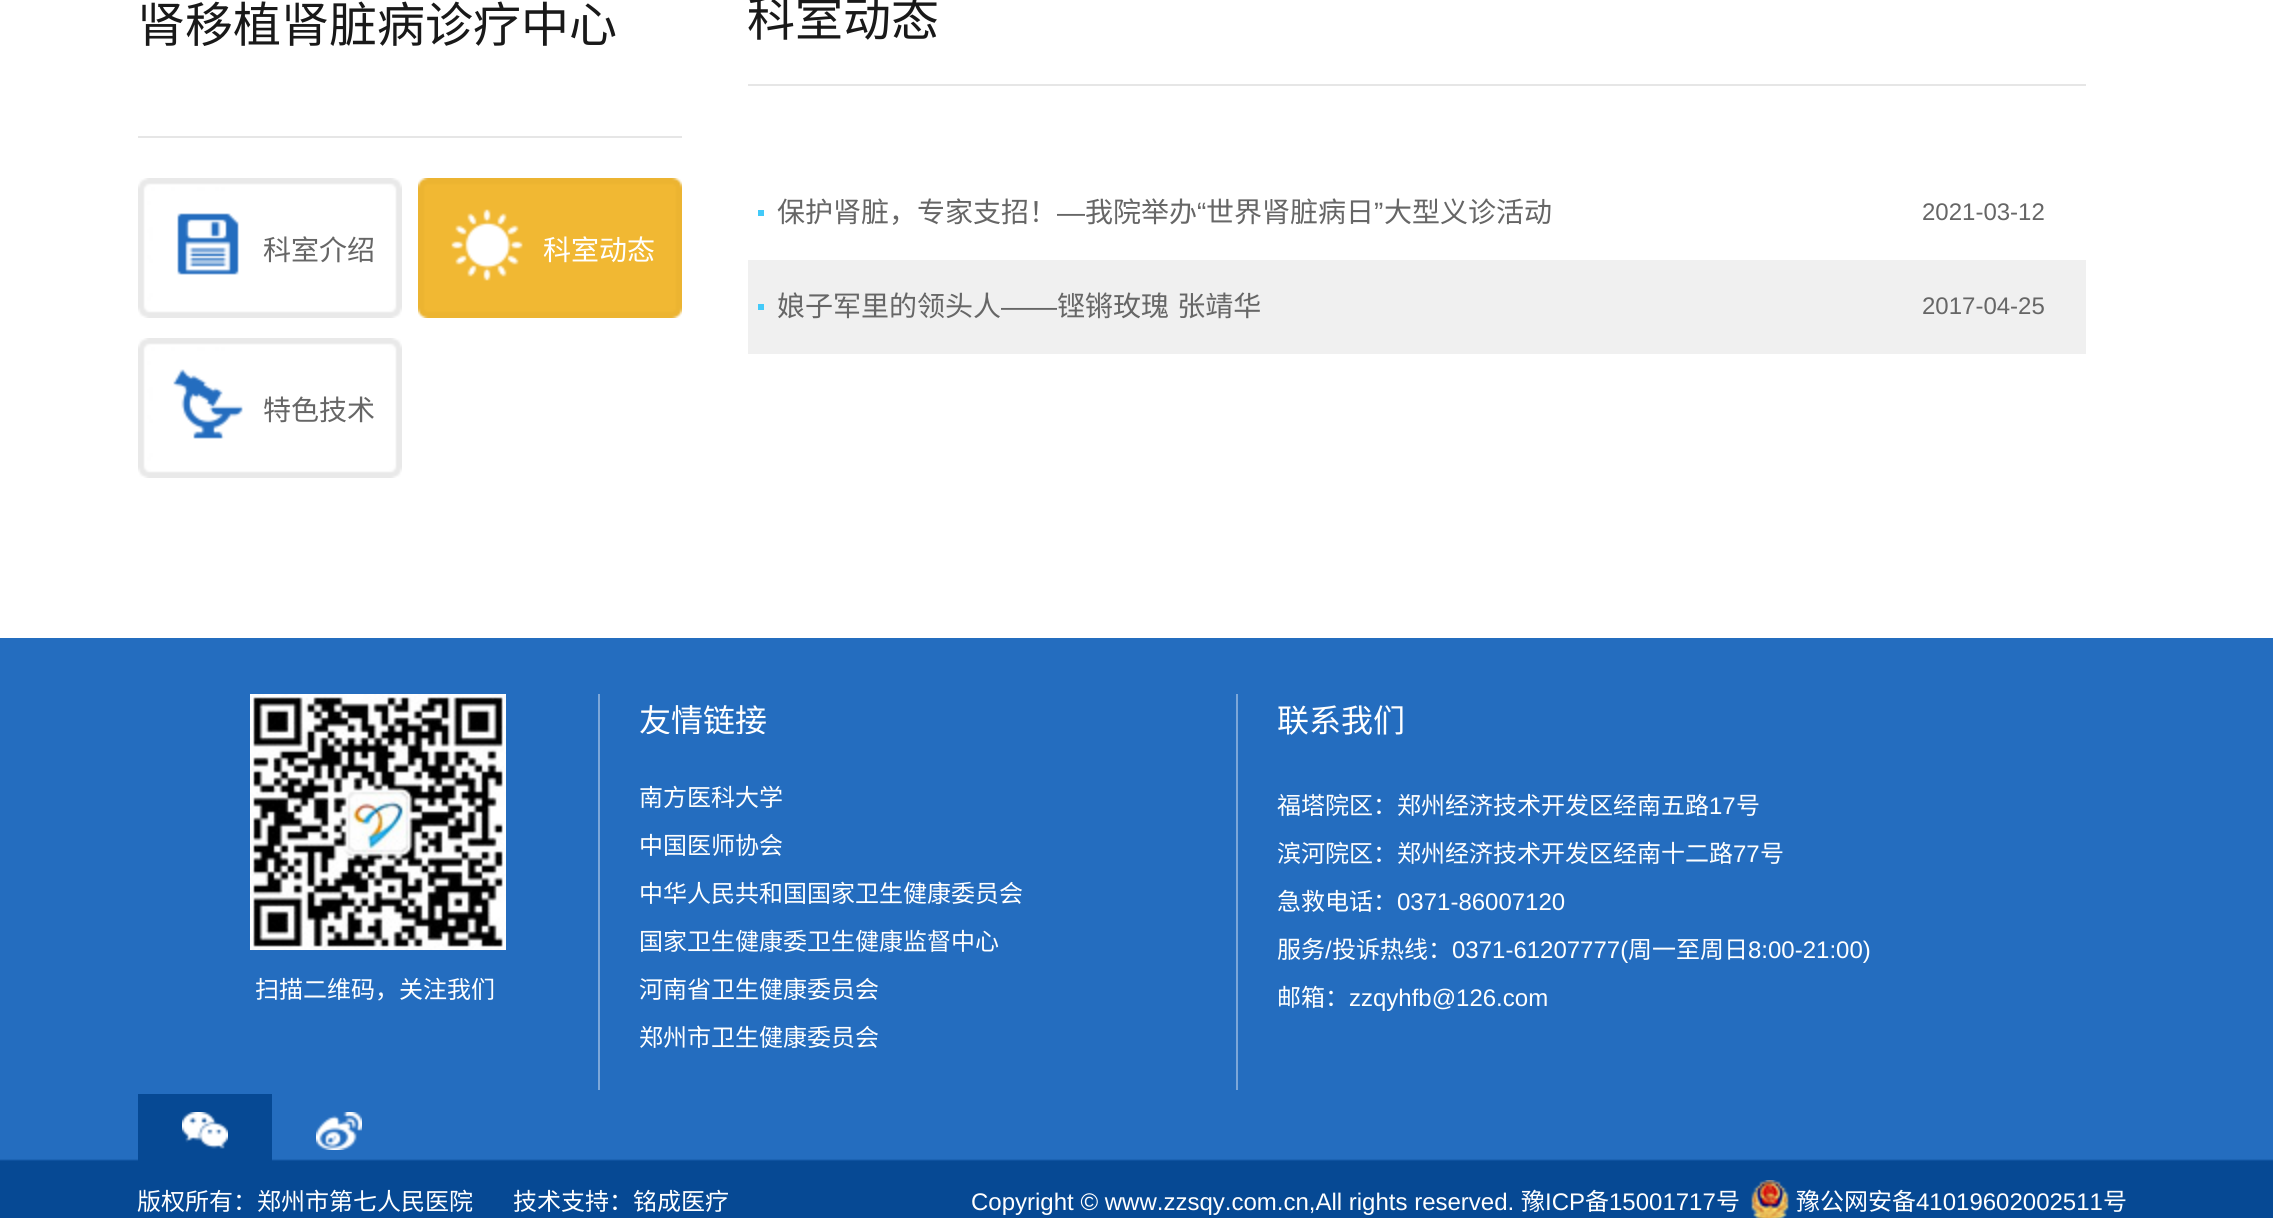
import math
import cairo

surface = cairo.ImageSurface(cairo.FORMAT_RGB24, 2273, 1218)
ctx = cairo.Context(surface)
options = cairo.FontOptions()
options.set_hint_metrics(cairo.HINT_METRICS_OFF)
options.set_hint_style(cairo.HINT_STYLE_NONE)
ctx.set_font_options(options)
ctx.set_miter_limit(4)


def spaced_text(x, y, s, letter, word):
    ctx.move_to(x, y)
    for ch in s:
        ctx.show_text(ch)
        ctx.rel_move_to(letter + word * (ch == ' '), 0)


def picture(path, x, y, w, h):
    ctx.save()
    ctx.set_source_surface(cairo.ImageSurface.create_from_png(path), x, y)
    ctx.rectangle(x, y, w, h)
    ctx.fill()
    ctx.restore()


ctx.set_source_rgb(1, 1, 1)
ctx.paint()
ctx.set_source_rgb(0.902, 0.902, 0.902)
ctx.rectangle(138, 136, 544, 2)
ctx.fill()
ctx.select_font_face("Noto Sans CJK SC")
ctx.set_font_size(48)
ctx.set_source_rgb(0.098, 0.098, 0.098)
ctx.move_to(137, 42)
ctx.show_text("肾移植肾脏病诊疗中心")
picture("img1.png", 138, 178, 264, 140)
picture("img2.png", 177, 213, 62, 62)
ctx.set_font_size(28)
ctx.set_source_rgb(0.4, 0.4, 0.4)
ctx.move_to(263, 260)
ctx.show_text("科室介绍")
picture("img3.png", 418, 178, 264, 140)
picture("img4.png", 451, 209, 72, 72)
ctx.set_source_rgb(1, 1, 1)
ctx.move_to(543, 260)
ctx.show_text("科室动态")
picture("img1.png", 138, 338, 264, 140)
picture("img5.png", 173, 369, 70, 70)
ctx.set_source_rgb(0.4, 0.4, 0.4)
ctx.move_to(263, 420)
ctx.show_text("特色技术")
ctx.set_source_rgb(0.902, 0.902, 0.902)
ctx.rectangle(748, 84, 1338, 2)
ctx.fill()
ctx.set_font_size(48)
ctx.set_source_rgb(0.098, 0.098, 0.098)
ctx.move_to(747, 36)
ctx.show_text("科室动态")
ctx.set_source_rgb(0.941, 0.941, 0.941)
ctx.rectangle(748, 260, 1338, 94)
ctx.fill()
ctx.set_source_rgb(0.263, 0.792, 0.976)
ctx.rectangle(758, 210, 6, 6)
ctx.fill()
ctx.set_font_size(28)
ctx.set_source_rgb(0.4, 0.4, 0.4)
ctx.move_to(777, 222)
ctx.show_text("保护肾脏，专家支招！")
ctx.select_font_face("Liberation Sans")
ctx.move_to(1057, 222)
ctx.show_text("—")
ctx.select_font_face("Noto Sans CJK SC")
ctx.move_to(1085, 222)
ctx.show_text("我院举办")
ctx.select_font_face("Liberation Sans")
ctx.move_to(1197, 222)
ctx.show_text("“")
ctx.select_font_face("Noto Sans CJK SC")
ctx.move_to(1206, 222)
ctx.show_text("世界肾脏病日")
ctx.select_font_face("Liberation Sans")
ctx.move_to(1374, 222)
ctx.show_text("”")
ctx.select_font_face("Noto Sans CJK SC")
ctx.move_to(1384, 222)
ctx.show_text("大型义诊活动")
ctx.select_font_face("Liberation Sans")
ctx.set_font_size(24)
ctx.move_to(1922, 220)
ctx.show_text("2021-03-12")
ctx.set_source_rgb(0.263, 0.792, 0.976)
ctx.rectangle(758, 304, 6, 6)
ctx.fill()
ctx.select_font_face("Noto Sans CJK SC")
ctx.set_font_size(28)
ctx.set_source_rgb(0.4, 0.4, 0.4)
ctx.move_to(777, 316)
ctx.show_text("娘子军里的领头人")
ctx.select_font_face("Liberation Sans")
ctx.move_to(1001, 316)
ctx.show_text("——")
ctx.select_font_face("Noto Sans CJK SC")
spaced_text(1057, 316, "铿锵玫瑰 张靖华", 0, 2)
ctx.select_font_face("Liberation Sans")
ctx.set_font_size(24)
ctx.move_to(1922, 314)
ctx.show_text("2017-04-25")
picture("img6.png", 0, 638, 2273, 580)
picture("img7.png", 250, 694, 256, 256)
ctx.select_font_face("Noto Sans CJK SC")
ctx.set_source_rgb(1, 1, 1)
ctx.move_to(255, 998)
ctx.show_text("扫描二维码，关注我们")
ctx.set_source_rgb(0.024, 0.286, 0.58)
ctx.rectangle(138, 1094, 134, 67)
ctx.fill()
picture("img8.png", 182, 1112, 46, 37)
picture("img9.png", 316, 1112, 46, 38)
ctx.set_source_rgb(0.486, 0.655, 0.851)
ctx.rectangle(598, 694, 2, 396)
ctx.fill()
ctx.save()
ctx.rectangle(640, 694, 460, 40)
ctx.clip()
ctx.set_font_size(32)
ctx.set_source_rgb(1, 1, 1)
ctx.move_to(639, 732)
ctx.show_text("友情链接")
ctx.restore()
ctx.set_source_rgb(1, 1, 1)
ctx.move_to(639, 806)
ctx.show_text("南方医科大学")
ctx.move_to(639, 854)
ctx.show_text("中国医师协会")
ctx.move_to(639, 902)
ctx.show_text("中华人民共和国国家卫生健康委员会")
ctx.move_to(639, 950)
ctx.show_text("国家卫生健康委卫生健康监督中心")
ctx.move_to(639, 998)
ctx.show_text("河南省卫生健康委员会")
ctx.move_to(639, 1046)
ctx.show_text("郑州市卫生健康委员会")
ctx.set_source_rgb(0.486, 0.655, 0.851)
ctx.rectangle(1236, 694, 2, 396)
ctx.fill()
ctx.set_font_size(32)
ctx.set_source_rgb(1, 1, 1)
ctx.move_to(1277, 732)
ctx.show_text("联系我们")
ctx.set_font_size(24)
ctx.move_to(1277, 814)
ctx.show_text("福塔院区：郑州经济技术开发区经南五路")
ctx.select_font_face("Liberation Sans")
ctx.move_to(1709, 814)
ctx.show_text("17")
ctx.select_font_face("Noto Sans CJK SC")
ctx.move_to(1736, 814)
ctx.show_text("号")
ctx.move_to(1277, 862)
ctx.show_text("滨河院区：郑州经济技术开发区经南十二路")
ctx.select_font_face("Liberation Sans")
ctx.move_to(1733, 862)
ctx.show_text("77")
ctx.select_font_face("Noto Sans CJK SC")
ctx.move_to(1760, 862)
ctx.show_text("号")
ctx.move_to(1277, 910)
ctx.show_text("急救电话：")
ctx.select_font_face("Liberation Sans")
ctx.move_to(1397, 910)
ctx.show_text("0371-86007120")
ctx.select_font_face("Noto Sans CJK SC")
ctx.move_to(1277, 958)
ctx.show_text("服务")
ctx.select_font_face("Liberation Sans")
ctx.move_to(1325, 958)
ctx.show_text("/")
ctx.select_font_face("Noto Sans CJK SC")
ctx.move_to(1332, 958)
ctx.show_text("投诉热线：")
ctx.select_font_face("Liberation Sans")
ctx.move_to(1452, 958)
ctx.show_text("0371-61207777(")
ctx.select_font_face("Noto Sans CJK SC")
ctx.move_to(1628, 958)
ctx.show_text("周一至周日")
ctx.select_font_face("Liberation Sans")
ctx.move_to(1748, 958)
ctx.show_text("8:00-21:00)")
ctx.select_font_face("Noto Sans CJK SC")
ctx.move_to(1277, 1006)
ctx.show_text("邮箱：")
ctx.select_font_face("Liberation Sans")
ctx.move_to(1349, 1006)
ctx.show_text("zzqyhfb@126.com")
ctx.select_font_face("Noto Sans CJK SC")
ctx.move_to(137, 1210)
ctx.show_text("版权所有：郑州市第七人民医院")
ctx.move_to(513, 1210)
ctx.show_text("技术支持：铭成医疗")
ctx.select_font_face("Liberation Sans")
ctx.move_to(971, 1210)
ctx.show_text("Copyright © www.zzsqy.com.cn,All rights reserved.")
ctx.select_font_face("Noto Sans CJK SC")
ctx.move_to(1521, 1210)
ctx.show_text("豫")
ctx.select_font_face("Liberation Sans")
ctx.move_to(1545, 1210)
ctx.show_text("ICP")
ctx.select_font_face("Noto Sans CJK SC")
ctx.move_to(1585, 1210)
ctx.show_text("备")
ctx.select_font_face("Liberation Sans")
ctx.move_to(1609, 1210)
ctx.show_text("15001717")
ctx.select_font_face("Noto Sans CJK SC")
ctx.move_to(1716, 1210)
ctx.show_text("号")
picture("img10.png", 1751, 1180, 38, 38)
ctx.move_to(1796, 1210)
ctx.show_text("豫公网安备")
ctx.select_font_face("Liberation Sans")
ctx.move_to(1916, 1210)
ctx.show_text("41019602002511")
ctx.select_font_face("Noto Sans CJK SC")
ctx.move_to(2103, 1210)
ctx.show_text("号")
surface.write_to_png("page.png")
